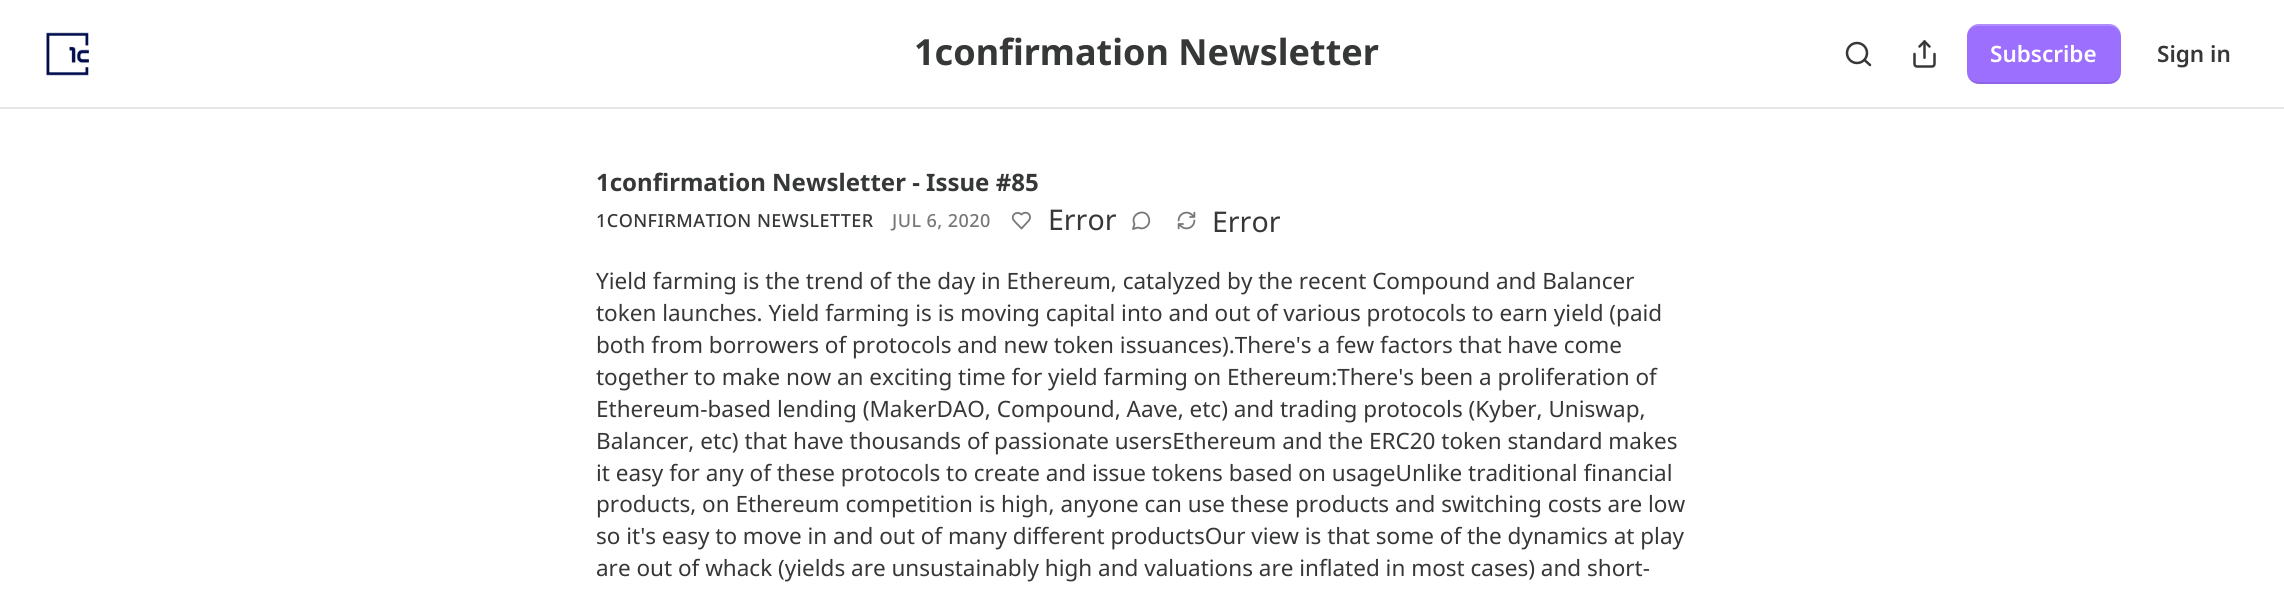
import math
import cairo

surface = cairo.ImageSurface(cairo.FORMAT_RGB24, 2284, 596)
ctx = cairo.Context(surface)
options = cairo.FontOptions()
options.set_hint_metrics(cairo.HINT_METRICS_OFF)
options.set_hint_style(cairo.HINT_STYLE_NONE)
ctx.set_font_options(options)
ctx.set_miter_limit(4)


def spaced_text(x, y, s, letter, word):
    ctx.move_to(x, y)
    for ch in s:
        ctx.show_text(ch)
        ctx.rel_move_to(letter + word * (ch == ' '), 0)


def round_rect(x, y, w, h, r):
    ctx.new_sub_path()
    for i, (u, v) in enumerate([(x + w - r, y + h - r), (x + r, y + h - r), (x + r, y + r), (x + w - r, y + r)]):
        ctx.arc(u, v, r, i * math.pi / 2, (i + 1) * math.pi / 2)
    ctx.close_path()


def picture(path, x, y, w, h):
    ctx.save()
    ctx.set_source_surface(cairo.ImageSurface.create_from_png(path), x, y)
    ctx.rectangle(x, y, w, h)
    ctx.fill()
    ctx.restore()


ctx.set_source_rgb(1, 1, 1)
ctx.paint()
ctx.set_source_rgb(0.902, 0.902, 0.902)
ctx.rectangle(0, 107, 2284, 2)
ctx.fill()
picture("img1.png", 46, 32, 43, 44)
ctx.select_font_face("Noto Sans", cairo.FONT_SLANT_NORMAL, cairo.FONT_WEIGHT_BOLD)
ctx.set_font_size(36)
ctx.set_source_rgb(0.212, 0.216, 0.216)
ctx.move_to(914, 65)
ctx.show_text("1confirmation Newsletter")
ctx.new_path()
ctx.arc(1857, 53, 10, 0, 2 * math.pi)
ctx.set_line_width(2.5)
ctx.stroke()
ctx.new_path()
ctx.move_to(1870, 65)
ctx.line_to(1864.5, 60)
ctx.set_line_cap(cairo.LINE_CAP_ROUND)
ctx.set_line_join(cairo.LINE_JOIN_ROUND)
ctx.stroke()
picture("img2.png", 1913, 40, 23, 28)
ctx.set_source_rgb(0.616, 0.435, 1)
round_rect(1967, 24, 154, 60, 12)
ctx.fill()
ctx.set_source_rgba(0, 0, 0, 0.1)
ctx.new_path()
ctx.move_to(1968, 76)
ctx.curve_to(1969, 81, 1974, 84, 1979, 84)
ctx.line_to(2109, 84)
ctx.curve_to(2116, 84, 2121, 79, 2121, 72)
ctx.line_to(2121, 70)
ctx.curve_to(2121, 77, 2116, 82, 2109, 82)
ctx.line_to(1978, 82)
ctx.curve_to(1974, 82, 1970, 80, 1968, 76)
ctx.close_path()
ctx.fill()
ctx.set_source_rgba(1, 1, 1, 0.2)
ctx.new_path()
ctx.move_to(1978, 26)
ctx.line_to(2109, 26)
ctx.curve_to(2116, 26, 2121, 31, 2121, 38)
ctx.line_to(2121, 36)
ctx.curve_to(2121, 29, 2116, 24, 2109, 24)
ctx.line_to(1979, 24)
ctx.curve_to(1974, 24, 1969, 27, 1968, 32)
ctx.curve_to(1970, 28, 1974, 26, 1978, 26)
ctx.close_path()
ctx.fill()
ctx.select_font_face("Noto Sans SemiBold")
ctx.set_font_size(22.5)
ctx.set_source_rgb(1, 1, 1)
ctx.move_to(1990, 62)
ctx.show_text("Subscribe")
ctx.set_source_rgb(0.212, 0.216, 0.216)
ctx.move_to(2157, 62)
ctx.show_text("Sign in")
ctx.select_font_face("Noto Sans", cairo.FONT_SLANT_NORMAL, cairo.FONT_WEIGHT_BOLD)
ctx.set_font_size(24)
ctx.move_to(596, 191)
ctx.show_text("1confirmation Newsletter - Issue #85")
ctx.select_font_face("Noto Sans Medium")
ctx.set_font_size(18)
spaced_text(596, 227, "1CONFIRMATION NEWSLETTER", 0.45, 0)
ctx.set_source_rgb(0.467, 0.467, 0.467)
spaced_text(892, 227, "JUL 6, 2020", 0.45, 0)
ctx.new_path()
ctx.move_to(1027.5, 222)
ctx.curve_to(1034, 216, 1026.5, 209.5, 1021.5, 214.5)
ctx.curve_to(1018, 211, 1011.5, 213.5, 1013, 219)
ctx.curve_to(1014, 221.5, 1019.5, 226, 1021.5, 228.5)
ctx.close_path()
ctx.set_line_width(1.8)
ctx.stroke()
ctx.select_font_face("Noto Sans")
ctx.set_font_size(28.5)
ctx.set_source_rgb(0.212, 0.216, 0.216)
ctx.move_to(1048, 230)
ctx.show_text("Error")
ctx.new_path()
ctx.move_to(1138, 227.5)
ctx.curve_to(1142, 229.5, 1146.5, 228, 1148.5, 224)
ctx.curve_to(1149.5, 222, 1149.5, 219.5, 1148.5, 217)
ctx.curve_to(1144.5, 207.5, 1129.5, 214.5, 1134.5, 224)
ctx.line_to(1133, 229)
ctx.close_path()
ctx.set_source_rgb(0.467, 0.467, 0.467)
ctx.stroke()
picture("img3.png", 1177, 211, 19, 19)
ctx.set_source_rgb(0.212, 0.216, 0.216)
ctx.move_to(1212, 232)
ctx.show_text("Error")
ctx.set_font_size(22.5)
ctx.move_to(596, 289)
ctx.show_text("Yield farming is the trend of the day in Ethereum, catalyzed by the recent Compound and Balancer")
ctx.move_to(596, 321)
ctx.show_text("token launches. Yield farming is is moving capital into and out of various protocols to earn yield (paid")
ctx.move_to(596, 353)
ctx.show_text("both from borrowers of protocols and new token issuances).There's a few factors that have come")
ctx.move_to(596, 385)
ctx.show_text("together to make now an exciting time for yield farming on Ethereum:There's been a proliferation of")
ctx.move_to(596, 417)
ctx.show_text("Ethereum-based lending (MakerDAO, Compound, Aave, etc) and trading protocols (Kyber, Uniswap,")
ctx.move_to(596, 449)
ctx.show_text("Balancer, etc) that have thousands of passionate usersEthereum and the ERC20 token standard makes")
ctx.move_to(596, 481)
ctx.show_text("it easy for any of these protocols to create and issue tokens based on usageUnlike traditional financial")
ctx.move_to(596, 512)
ctx.show_text("products, on Ethereum competition is high, anyone can use these products and switching costs are low")
ctx.move_to(596, 544)
ctx.show_text("so it's easy to move in and out of many different productsOur view is that some of the dynamics at play")
ctx.move_to(596, 576)
ctx.show_text("are out of whack (yields are unsustainably high and valuations are inflated in most cases) and short-")
surface.write_to_png("page.png")
